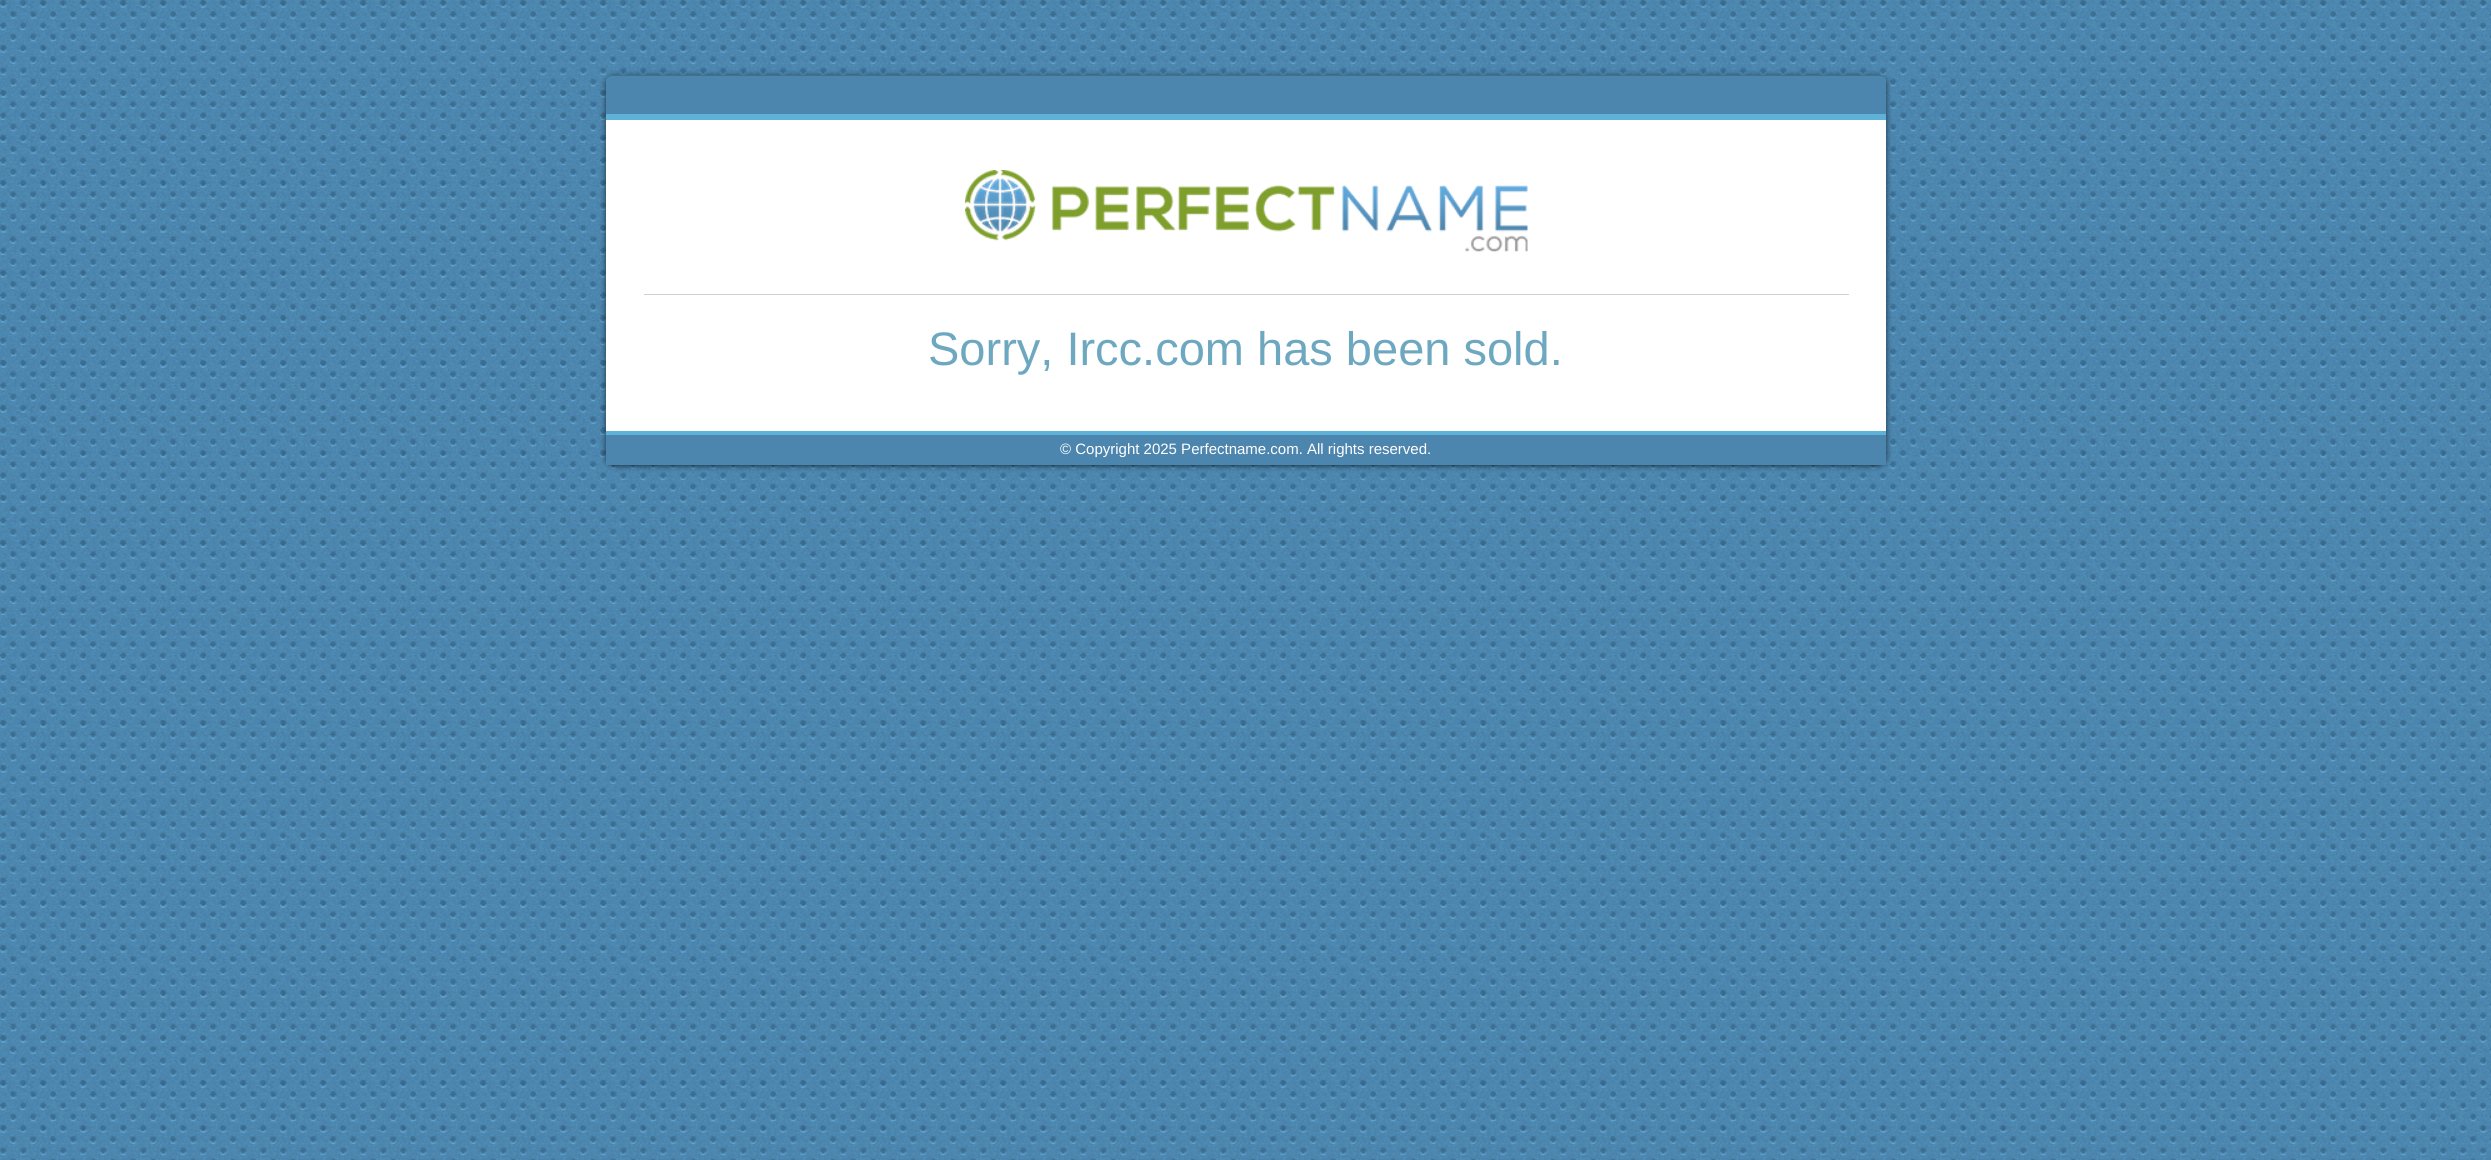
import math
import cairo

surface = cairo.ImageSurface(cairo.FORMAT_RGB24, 2491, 1160)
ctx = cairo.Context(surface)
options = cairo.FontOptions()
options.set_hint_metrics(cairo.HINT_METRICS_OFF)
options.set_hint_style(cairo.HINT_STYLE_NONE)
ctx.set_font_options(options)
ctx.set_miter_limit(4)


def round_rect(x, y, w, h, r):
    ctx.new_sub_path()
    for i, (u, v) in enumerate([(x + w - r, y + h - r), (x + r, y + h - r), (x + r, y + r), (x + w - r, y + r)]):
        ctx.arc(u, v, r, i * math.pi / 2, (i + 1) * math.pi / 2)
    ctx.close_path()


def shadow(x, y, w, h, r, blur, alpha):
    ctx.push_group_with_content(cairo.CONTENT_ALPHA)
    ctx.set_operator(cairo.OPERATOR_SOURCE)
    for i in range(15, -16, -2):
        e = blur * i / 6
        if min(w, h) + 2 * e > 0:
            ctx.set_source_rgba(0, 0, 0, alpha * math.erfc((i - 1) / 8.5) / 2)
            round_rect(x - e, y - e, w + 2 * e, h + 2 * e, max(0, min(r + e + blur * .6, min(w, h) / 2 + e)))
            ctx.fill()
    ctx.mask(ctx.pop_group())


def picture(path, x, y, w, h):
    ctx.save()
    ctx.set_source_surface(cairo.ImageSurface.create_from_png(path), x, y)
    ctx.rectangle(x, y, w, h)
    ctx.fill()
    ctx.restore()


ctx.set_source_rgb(1, 1, 1)
ctx.paint()
picture("img1.png", 0, 0, 2491, 1160)
ctx.set_source_rgb(0, 0, 0)
shadow(606, 76, 1280, 390, 8, 3, 0.65)
ctx.set_source_rgb(1, 1, 1)
ctx.new_path()
ctx.move_to(614, 75)
ctx.line_to(1878, 75)
ctx.curve_to(1882.5, 75, 1886, 78.5, 1886, 83)
ctx.line_to(1886, 465)
ctx.line_to(606, 465)
ctx.line_to(606, 83)
ctx.curve_to(606, 78.5, 609.5, 75, 614, 75)
ctx.close_path()
ctx.fill()
ctx.set_source_rgb(0.298, 0.522, 0.678)
ctx.new_path()
ctx.move_to(612, 75)
ctx.line_to(1880, 75)
ctx.curve_to(1883.5, 75, 1886, 77.5, 1886, 81)
ctx.line_to(1886, 120)
ctx.line_to(606, 120)
ctx.line_to(606, 81)
ctx.curve_to(606, 77.5, 608.5, 75, 612, 75)
ctx.close_path()
ctx.fill()
ctx.set_source_rgb(0.243, 0.451, 0.545)
ctx.new_path()
ctx.move_to(612, 75)
ctx.curve_to(610, 75, 606, 77, 606, 80)
ctx.curve_to(607, 77, 610, 76, 612, 76)
ctx.line_to(1880, 76)
ctx.curve_to(1883, 76, 1886, 78, 1886, 81)
ctx.curve_to(1886, 78, 1883, 75, 1880, 75)
ctx.close_path()
ctx.fill()
ctx.set_source_rgb(0.369, 0.694, 0.843)
ctx.rectangle(606, 114, 1280, 6)
ctx.fill()
picture("img2.png", 965, 170, 563, 82)
ctx.set_source_rgb(0.812, 0.812, 0.812)
ctx.rectangle(644, 294, 1205, 1)
ctx.fill()
ctx.select_font_face("Liberation Sans")
ctx.set_font_size(47)
ctx.set_source_rgb(0.431, 0.659, 0.753)
ctx.move_to(928, 365)
ctx.show_text("Sorry, Ircc.com has been sold.")
ctx.set_source_rgb(0.298, 0.522, 0.678)
ctx.rectangle(606, 435, 1280, 30)
ctx.fill()
ctx.set_source_rgb(0.369, 0.694, 0.843)
ctx.rectangle(606, 431, 1280, 4)
ctx.fill()
ctx.set_font_size(15)
ctx.set_source_rgb(1, 1, 1)
ctx.move_to(1060, 454)
ctx.show_text("© Copyright 2025 Perfectname.com. All rights reserved.")
surface.write_to_png("page.png")
